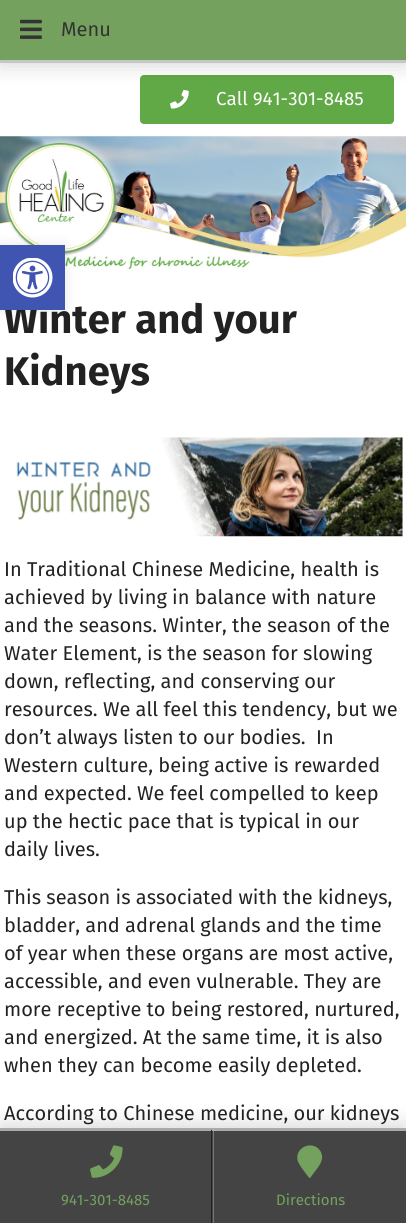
import math
import cairo

surface = cairo.ImageSurface(cairo.FORMAT_RGB24, 406, 1223)
ctx = cairo.Context(surface)
options = cairo.FontOptions()
options.set_hint_metrics(cairo.HINT_METRICS_OFF)
options.set_hint_style(cairo.HINT_STYLE_NONE)
ctx.set_font_options(options)
ctx.set_miter_limit(4)


def round_rect(x, y, w, h, r):
    ctx.new_sub_path()
    for i, (u, v) in enumerate([(x + w - r, y + h - r), (x + r, y + h - r), (x + r, y + r), (x + w - r, y + r)]):
        ctx.arc(u, v, r, i * math.pi / 2, (i + 1) * math.pi / 2)
    ctx.close_path()


def shadow(x, y, w, h, r, blur, alpha):
    ctx.push_group_with_content(cairo.CONTENT_ALPHA)
    ctx.set_operator(cairo.OPERATOR_SOURCE)
    for i in range(15, -16, -2):
        e = blur * i / 6
        if min(w, h) + 2 * e > 0:
            ctx.set_source_rgba(0, 0, 0, alpha * math.erfc((i - 1) / 8.5) / 2)
            round_rect(x - e, y - e, w + 2 * e, h + 2 * e, max(0, min(r + e + blur * .6, min(w, h) / 2 + e)))
            ctx.fill()
    ctx.mask(ctx.pop_group())


def picture(path, x, y, w, h):
    ctx.save()
    ctx.set_source_surface(cairo.ImageSurface.create_from_png(path), x, y)
    ctx.rectangle(x, y, w, h)
    ctx.fill()
    ctx.restore()


ctx.set_source_rgb(1, 1, 1)
ctx.paint()
ctx.set_source_rgb(0.38, 0.663, 0.275)
round_rect(140, 75, 254, 49, 4)
ctx.fill()
picture("img2.png", 170, 89, 19, 20)
ctx.set_source_rgb(0, 0, 0)
shadow(0, 4, 406, 62, 0, 10, 0.15)
ctx.set_source_rgb(0.455, 0.631, 0.369)
ctx.rectangle(0, 0, 406, 60)
ctx.fill()
ctx.set_source_rgb(0.776, 0.776, 0.776)
ctx.rectangle(0, 60, 406, 3)
ctx.fill()
picture("img1.png", 20, 19, 22, 20)
ctx.select_font_face("Fira Sans")
ctx.set_font_size(20)
ctx.set_source_rgb(0.2, 0.2, 0.2)
ctx.move_to(61, 36)
ctx.show_text("Menu")
ctx.set_font_size(18.75)
ctx.set_source_rgb(1, 1, 1)
ctx.move_to(216, 105)
ctx.show_text("Call 941-301-8485")
picture("img3.png", 0, 136, 406, 134)
ctx.select_font_face("Fira Sans", cairo.FONT_SLANT_NORMAL, cairo.FONT_WEIGHT_BOLD)
ctx.set_font_size(40)
ctx.set_source_rgb(0.133, 0.133, 0.133)
ctx.move_to(4, 333)
ctx.show_text("Winter and your")
ctx.move_to(4, 385)
ctx.show_text("Kidneys")
picture("img4.png", 16, 437, 387, 100)
ctx.select_font_face("Fira Sans")
ctx.set_font_size(20)
ctx.move_to(4, 576)
ctx.show_text("In Traditional Chinese Medicine, health is")
ctx.move_to(4, 604)
ctx.show_text("achieved by living in balance with nature")
ctx.move_to(4, 632)
ctx.show_text("and the seasons. Winter, the season of the")
ctx.move_to(4, 660)
ctx.show_text("Water Element, is the season for slowing")
ctx.move_to(4, 688)
ctx.show_text("down, reflecting, and conserving our")
ctx.move_to(4, 716)
ctx.show_text("resources. We all feel this tendency, but we")
ctx.move_to(4, 744)
ctx.show_text("don’t always listen to our bodies.")
ctx.move_to(316, 744)
ctx.show_text("In")
ctx.move_to(4, 772)
ctx.show_text("Western culture, being active is rewarded")
ctx.move_to(4, 800)
ctx.show_text("and expected. We feel compelled to keep")
ctx.move_to(4, 828)
ctx.show_text("up the hectic pace that is typical in our")
ctx.move_to(4, 856)
ctx.show_text("daily lives.")
ctx.move_to(4, 904)
ctx.show_text("This season is associated with the kidneys,")
ctx.move_to(4, 932)
ctx.show_text("bladder, and adrenal glands and the time")
ctx.move_to(4, 960)
ctx.show_text("of year when these organs are most active,")
ctx.move_to(4, 988)
ctx.show_text("accessible, and even vulnerable. They are")
ctx.move_to(4, 1016)
ctx.show_text("more receptive to being restored, nurtured,")
ctx.move_to(4, 1044)
ctx.show_text("and energized. At the same time, it is also")
ctx.move_to(4, 1072)
ctx.show_text("when they can become easily depleted.")
ctx.move_to(4, 1120)
ctx.show_text("According to Chinese medicine, our kidneys")
ctx.set_source_rgb(0, 0, 0)
shadow(0, 245, 65, 65, 0, 6, 0.1)
ctx.set_source_rgb(0.251, 0.329, 0.698)
ctx.rectangle(0, 245, 65, 65)
ctx.fill()
picture("img5.png", 13, 258, 40, 40)
ctx.set_source_rgb(0, 0, 0)
shadow(0, 1124, 406, 96, 0, 10, 0.15)
ctx.set_source_rgb(0.267, 0.267, 0.267)
ctx.rectangle(0, 1131, 406, 92)
ctx.fill()
ctx.set_source_rgb(0.667, 0.667, 0.667)
ctx.rectangle(0, 1128, 406, 3)
ctx.fill()
ctx.set_source_rgb(0.133, 0.133, 0.133)
ctx.rectangle(211, 1130, 1, 93)
ctx.fill()
picture("img6.png", 90, 1145, 33, 33)
ctx.set_font_size(15)
ctx.set_source_rgb(0.455, 0.631, 0.369)
ctx.move_to(61, 1205)
ctx.show_text("941-301-8485")
ctx.set_source_rgba(1, 1, 1, 0.27)
ctx.rectangle(213, 1130, 1, 93)
ctx.fill()
ctx.set_source_rgb(0.455, 0.631, 0.369)
ctx.new_path()
ctx.move_to(308.5, 1177)
ctx.curve_to(305.5, 1173, 298.5, 1164.5, 297.5, 1160)
ctx.curve_to(295, 1147, 312.5, 1140, 320, 1150.5)
ctx.curve_to(325.5, 1159, 319, 1166, 314.5, 1172)
ctx.line_to(310.5, 1177.5)
ctx.curve_to(309.5, 1178, 309, 1178, 308.5, 1177)
ctx.close_path()
ctx.fill()
ctx.move_to(276, 1205)
ctx.show_text("Directions")
surface.write_to_png("page.png")
